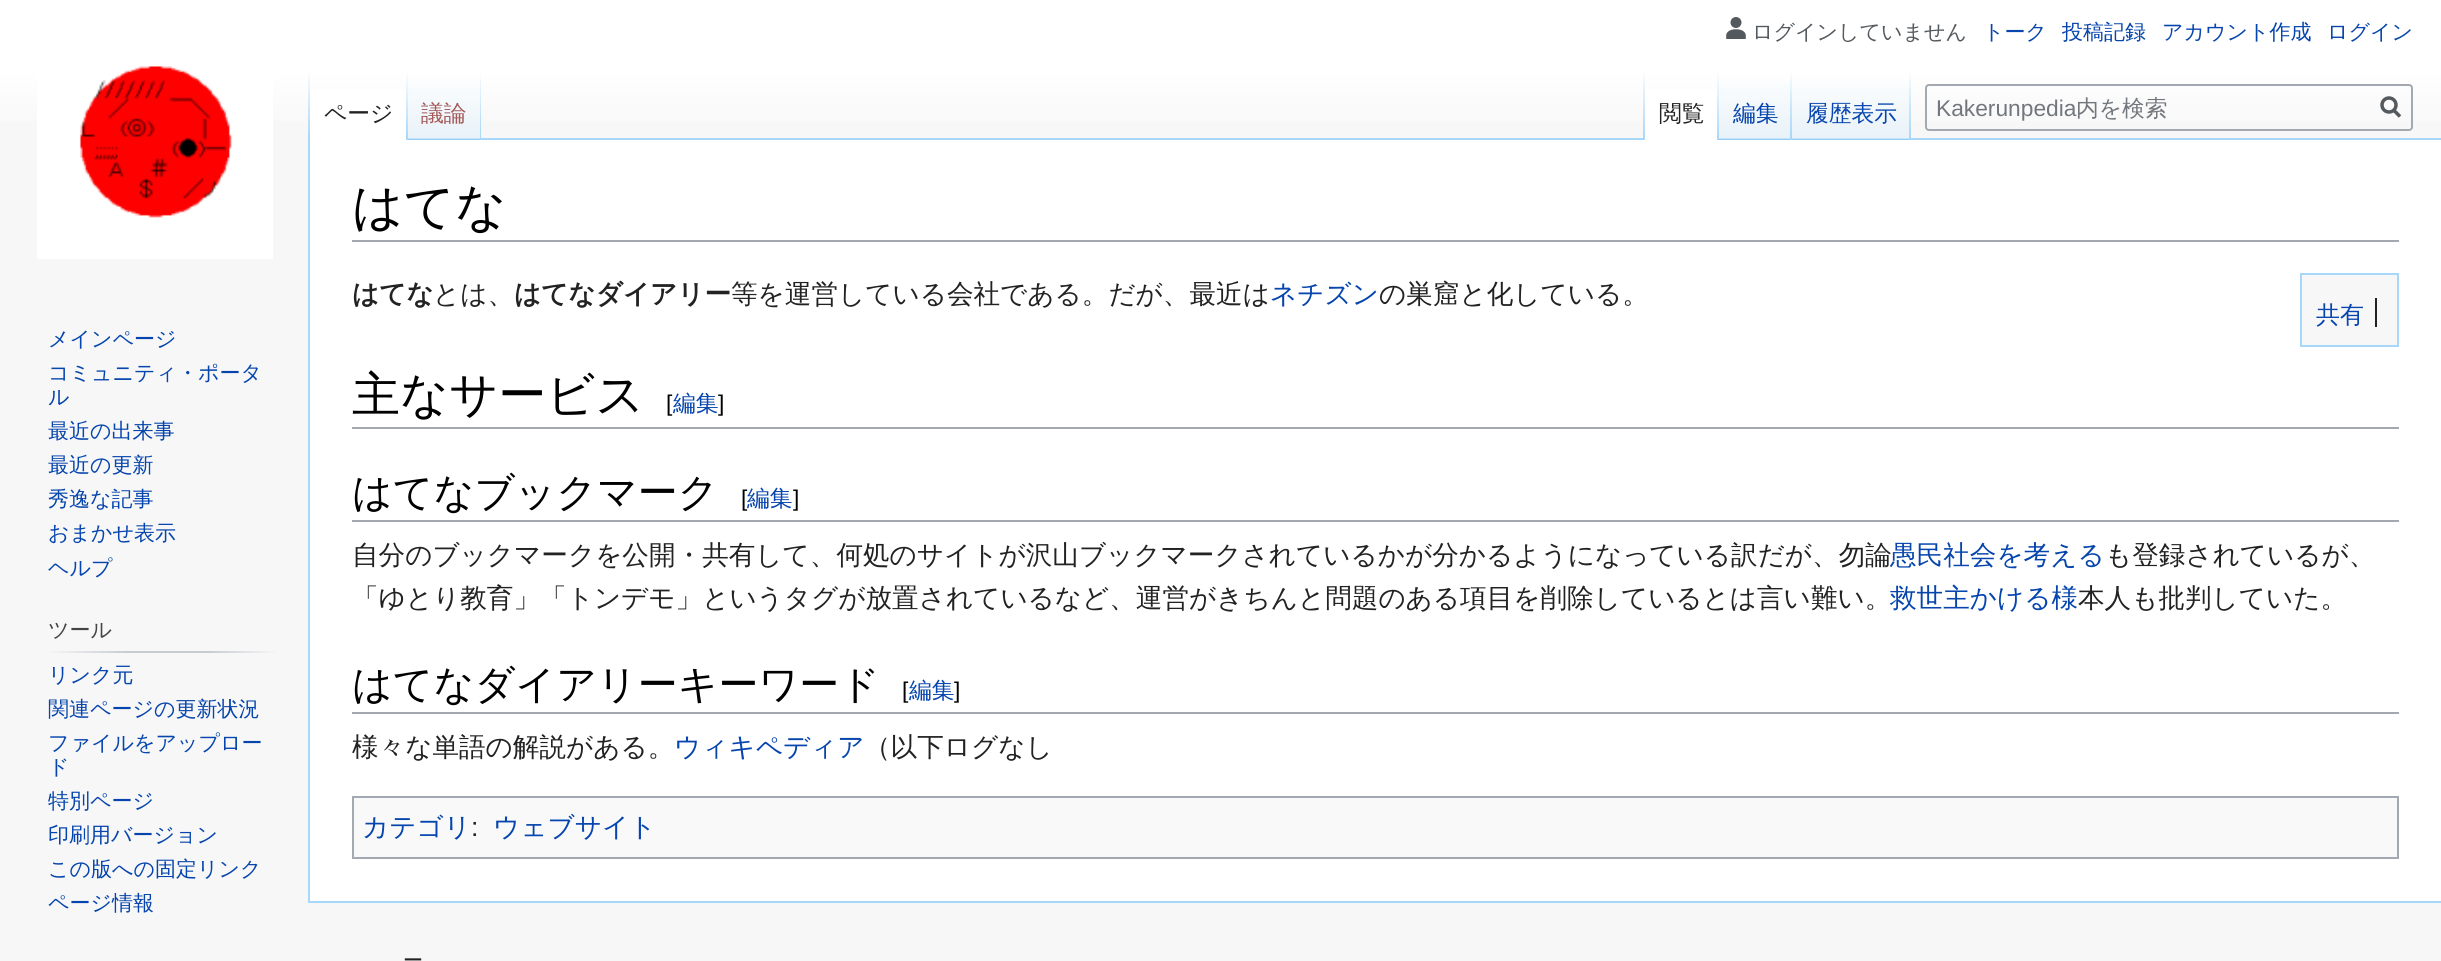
import math
import cairo

surface = cairo.ImageSurface(cairo.FORMAT_RGB24, 2441, 961)
ctx = cairo.Context(surface)
options = cairo.FontOptions()
options.set_hint_metrics(cairo.HINT_METRICS_OFF)
options.set_hint_style(cairo.HINT_STYLE_NONE)
ctx.set_font_options(options)
ctx.set_miter_limit(4)


def round_rect(x, y, w, h, r):
    ctx.new_sub_path()
    for i, (u, v) in enumerate([(x + w - r, y + h - r), (x + r, y + h - r), (x + r, y + r), (x + w - r, y + r)]):
        ctx.arc(u, v, r, i * math.pi / 2, (i + 1) * math.pi / 2)
    ctx.close_path()


def picture(path, x, y, w, h):
    ctx.save()
    ctx.set_source_surface(cairo.ImageSurface.create_from_png(path), x, y)
    ctx.rectangle(x, y, w, h)
    ctx.fill()
    ctx.restore()


ctx.set_source_rgb(0.965, 0.965, 0.965)
ctx.paint()
gradient = cairo.LinearGradient(1221, 0, 1221, 140)
gradient.add_color_stop_rgba(0.5, 1, 1, 1, 1)
gradient.add_color_stop_rgba(1, 0.965, 0.965, 0.965, 1)
ctx.set_source(gradient)
ctx.rectangle(0, 0, 2441, 121)
ctx.fill()
picture("img1.png", 1726, 17, 20, 22)
ctx.select_font_face("WenQuanYi Zen Hei Medium")
ctx.set_font_size(21)
ctx.set_source_rgb(0.329, 0.349, 0.365)
ctx.move_to(1752, 39)
ctx.show_text("ログインしていません")
ctx.set_source_rgb(0.024, 0.271, 0.678)
ctx.move_to(1983, 39)
ctx.show_text("トーク")
ctx.move_to(2062, 39)
ctx.show_text("投稿記録")
ctx.move_to(2162, 39)
ctx.show_text("アカウント作成")
ctx.move_to(2327, 39)
ctx.show_text("ログイン")
ctx.set_source_rgb(0.655, 0.843, 0.976)
ctx.rectangle(308, 901, 2133, 2)
ctx.fill()
ctx.rectangle(308, 138, 2, 765)
ctx.fill()
gradient = cairo.LinearGradient(309, 70, 309, 140)
gradient.add_color_stop_rgba(0, 0.655, 0.843, 0.976, 0)
gradient.add_color_stop_rgba(1, 0.655, 0.843, 0.976, 1)
ctx.set_source(gradient)
ctx.rectangle(308, 70, 2, 70)
ctx.fill()
ctx.set_source_rgb(1, 1, 1)
ctx.rectangle(310, 89, 96, 51)
ctx.fill()
gradient = cairo.LinearGradient(407, 70, 407, 140)
gradient.add_color_stop_rgba(0, 1, 1, 1, 1)
gradient.add_color_stop_rgba(1, 0.655, 0.843, 0.976, 1)
ctx.set_source(gradient)
ctx.rectangle(406, 70, 2, 70)
ctx.fill()
ctx.set_font_size(22.75)
ctx.set_source_rgb(0.133, 0.133, 0.133)
ctx.move_to(324, 121)
ctx.show_text("ページ")
gradient = cairo.LinearGradient(445, 140, 445, 70)
gradient.add_color_stop_rgba(0, 0.467, 0.757, 0.965, 1)
gradient.add_color_stop_rgba(0.03, 0.91, 0.949, 0.973, 1)
gradient.add_color_stop_rgba(1, 1, 1, 1, 1)
ctx.set_source(gradient)
ctx.rectangle(408, 80, 73, 60)
ctx.fill()
gradient = cairo.LinearGradient(480, 70, 480, 140)
gradient.add_color_stop_rgba(0, 0.655, 0.843, 0.976, 0)
gradient.add_color_stop_rgba(1, 0.655, 0.843, 0.976, 1)
ctx.set_source(gradient)
ctx.rectangle(480, 70, 1, 70)
ctx.fill()
ctx.set_source_rgb(0.647, 0.345, 0.345)
ctx.move_to(421, 121)
ctx.show_text("議論")
ctx.set_source_rgb(0.655, 0.843, 0.976)
ctx.rectangle(481, 138, 1960, 2)
ctx.fill()
gradient = cairo.LinearGradient(1644, 70, 1644, 140)
gradient.add_color_stop_rgba(0, 0.655, 0.843, 0.976, 0)
gradient.add_color_stop_rgba(1, 0.655, 0.843, 0.976, 1)
ctx.set_source(gradient)
ctx.rectangle(1643, 70, 2, 70)
ctx.fill()
ctx.set_source_rgb(1, 1, 1)
ctx.rectangle(1645, 89, 72, 51)
ctx.fill()
gradient = cairo.LinearGradient(1718, 70, 1718, 140)
gradient.add_color_stop_rgba(0, 1, 1, 1, 1)
gradient.add_color_stop_rgba(1, 0.655, 0.843, 0.976, 1)
ctx.set_source(gradient)
ctx.rectangle(1717, 70, 2, 70)
ctx.fill()
ctx.set_source_rgb(0.133, 0.133, 0.133)
ctx.move_to(1659, 121)
ctx.show_text("閲覧")
gradient = cairo.LinearGradient(1755, 140, 1755, 70)
gradient.add_color_stop_rgba(0, 0.467, 0.757, 0.965, 1)
gradient.add_color_stop_rgba(0.03, 0.91, 0.949, 0.973, 1)
gradient.add_color_stop_rgba(1, 1, 1, 1, 1)
ctx.set_source(gradient)
ctx.rectangle(1719, 80, 73, 60)
ctx.fill()
gradient = cairo.LinearGradient(1791, 70, 1791, 140)
gradient.add_color_stop_rgba(0, 0.655, 0.843, 0.976, 0)
gradient.add_color_stop_rgba(1, 0.655, 0.843, 0.976, 1)
ctx.set_source(gradient)
ctx.rectangle(1790, 70, 2, 70)
ctx.fill()
ctx.set_source_rgb(0.024, 0.271, 0.678)
ctx.move_to(1733, 121)
ctx.show_text("編集")
gradient = cairo.LinearGradient(1852, 140, 1852, 70)
gradient.add_color_stop_rgba(0, 0.467, 0.757, 0.965, 1)
gradient.add_color_stop_rgba(0.03, 0.91, 0.949, 0.973, 1)
gradient.add_color_stop_rgba(1, 1, 1, 1, 1)
ctx.set_source(gradient)
ctx.rectangle(1792, 80, 119, 60)
ctx.fill()
gradient = cairo.LinearGradient(1910, 70, 1910, 140)
gradient.add_color_stop_rgba(0, 0.655, 0.843, 0.976, 0)
gradient.add_color_stop_rgba(1, 0.655, 0.843, 0.976, 1)
ctx.set_source(gradient)
ctx.rectangle(1909, 70, 2, 70)
ctx.fill()
ctx.set_source_rgb(0.024, 0.271, 0.678)
ctx.move_to(1806, 121)
ctx.show_text("履歴表示")
round_rect(1926, 85, 486, 45, 3)
ctx.set_source_rgb(0.635, 0.663, 0.694)
ctx.stroke()
ctx.select_font_face("Liberation Sans")
ctx.set_source_rgb(0.447, 0.467, 0.49)
ctx.move_to(1936, 116)
ctx.show_text("Kakerunpedia")
ctx.select_font_face("WenQuanYi Zen Hei Medium")
ctx.move_to(2076, 116)
ctx.show_text("内を検索")
ctx.new_path()
ctx.move_to(2400, 116.5)
ctx.line_to(2393, 109.5)
ctx.set_source_rgb(0.329, 0.349, 0.365)
ctx.set_line_width(3.5)
ctx.stroke()
ctx.arc(2389, 105, 7, 0, 2 * math.pi)
ctx.stroke()
picture("img2.png", 37, 66, 236, 193)
ctx.set_font_size(21)
ctx.set_source_rgb(0.024, 0.271, 0.678)
ctx.move_to(48, 346)
ctx.show_text("メインページ")
ctx.move_to(48, 380)
ctx.show_text("コミュニティ・ポータ")
ctx.move_to(48, 404)
ctx.show_text("ル")
ctx.move_to(48, 438)
ctx.show_text("最近の出来事")
ctx.move_to(48, 472)
ctx.show_text("最近の更新")
ctx.move_to(48, 506)
ctx.show_text("秀逸な記事")
ctx.move_to(48, 540)
ctx.show_text("おまかせ表示")
ctx.move_to(48, 575)
ctx.show_text("ヘルプ")
ctx.set_source_rgb(0.267, 0.267, 0.267)
ctx.move_to(48, 637)
ctx.show_text("ツール")
gradient = cairo.LinearGradient(47, 652, 277, 652)
gradient.add_color_stop_rgba(0, 0.965, 0.965, 0.965, 1)
gradient.add_color_stop_rgba(0.35, 0.784, 0.8, 0.82, 1)
gradient.add_color_stop_rgba(0.7, 0.784, 0.8, 0.82, 1)
gradient.add_color_stop_rgba(1, 0.965, 0.965, 0.965, 1)
ctx.set_source(gradient)
ctx.rectangle(47, 651, 230, 2)
ctx.fill()
ctx.set_source_rgb(0.024, 0.271, 0.678)
ctx.move_to(48, 682)
ctx.show_text("リンク元")
ctx.move_to(48, 716)
ctx.show_text("関連ページの更新状況")
ctx.move_to(48, 750)
ctx.show_text("ファイルをアップロー")
ctx.move_to(48, 774)
ctx.show_text("ド")
ctx.move_to(48, 808)
ctx.show_text("特別ページ")
ctx.move_to(48, 842)
ctx.show_text("印刷用バージョン")
ctx.move_to(48, 876)
ctx.show_text("この版への固定リンク")
ctx.move_to(48, 910)
ctx.show_text("ページ情報")
ctx.set_source_rgb(1, 1, 1)
ctx.rectangle(310, 140, 2131, 761)
ctx.fill()
ctx.set_source_rgb(0.635, 0.663, 0.694)
ctx.rectangle(352, 240, 2047, 2)
ctx.fill()
ctx.set_font_size(50.5)
ctx.set_source_rgb(0, 0, 0)
ctx.move_to(352, 224)
ctx.show_text("はてな")
ctx.select_font_face("WenQuanYi Zen Hei", cairo.FONT_SLANT_NORMAL, cairo.FONT_WEIGHT_BOLD)
ctx.set_font_size(26.6)
ctx.set_source_rgb(0.133, 0.133, 0.133)
ctx.move_to(352, 303)
ctx.show_text("はてな")
ctx.select_font_face("WenQuanYi Zen Hei Medium")
ctx.move_to(433, 303)
ctx.show_text("とは、")
ctx.select_font_face("WenQuanYi Zen Hei", cairo.FONT_SLANT_NORMAL, cairo.FONT_WEIGHT_BOLD)
ctx.move_to(514, 303)
ctx.show_text("はてなダイアリー")
ctx.select_font_face("WenQuanYi Zen Hei Medium")
ctx.move_to(731, 303)
ctx.show_text("等を運営している会社である。だが、最近は")
ctx.set_source_rgb(0.024, 0.271, 0.678)
ctx.move_to(1270, 303)
ctx.show_text("ネチズン")
ctx.set_source_rgb(0.133, 0.133, 0.133)
ctx.move_to(1379, 303)
ctx.show_text("の巣窟と化している。")
ctx.set_source_rgb(0.635, 0.663, 0.694)
ctx.rectangle(352, 427, 2047, 2)
ctx.fill()
ctx.set_font_size(48)
ctx.set_source_rgb(0, 0, 0)
ctx.move_to(352, 411)
ctx.show_text("主なサービス")
ctx.select_font_face("Liberation Sans")
ctx.set_font_size(22.75)
ctx.move_to(666, 411)
ctx.show_text("[")
ctx.select_font_face("WenQuanYi Zen Hei Medium")
ctx.set_source_rgb(0.024, 0.271, 0.678)
ctx.move_to(673, 411)
ctx.show_text("編集")
ctx.select_font_face("Liberation Sans")
ctx.set_source_rgb(0, 0, 0)
ctx.move_to(718, 411)
ctx.show_text("]")
ctx.set_source_rgb(0.635, 0.663, 0.694)
ctx.rectangle(352, 520, 2047, 2)
ctx.fill()
ctx.select_font_face("WenQuanYi Zen Hei Medium")
ctx.set_font_size(39.9)
ctx.set_source_rgb(0, 0, 0)
ctx.move_to(352, 506)
ctx.show_text("はてなブックマーク")
ctx.select_font_face("Liberation Sans")
ctx.set_font_size(22.75)
ctx.move_to(741, 506)
ctx.show_text("[")
ctx.select_font_face("WenQuanYi Zen Hei Medium")
ctx.set_source_rgb(0.024, 0.271, 0.678)
ctx.move_to(747, 506)
ctx.show_text("編集")
ctx.select_font_face("Liberation Sans")
ctx.set_source_rgb(0, 0, 0)
ctx.move_to(793, 506)
ctx.show_text("]")
ctx.select_font_face("WenQuanYi Zen Hei Medium")
ctx.set_font_size(26.6)
ctx.set_source_rgb(0.133, 0.133, 0.133)
ctx.move_to(352, 564)
ctx.show_text("自分のブックマークを公開・共有して、何処のサイトが沢山ブックマークされているかが分かるようになっている訳だが、勿論")
ctx.set_source_rgb(0.024, 0.271, 0.678)
ctx.move_to(1890, 564)
ctx.show_text("愚民社会を考える")
ctx.set_source_rgb(0.133, 0.133, 0.133)
ctx.move_to(2105, 564)
ctx.show_text("も登録されているが、")
ctx.move_to(352, 607)
ctx.show_text("「ゆとり教育」「トンデモ」というタグが放置されているなど、運営がきちんと問題のある項目を削除しているとは言い難い。")
ctx.set_source_rgb(0.024, 0.271, 0.678)
ctx.move_to(1890, 607)
ctx.show_text("救世主かける様")
ctx.set_source_rgb(0.133, 0.133, 0.133)
ctx.move_to(2078, 607)
ctx.show_text("本人も批判していた。")
ctx.set_source_rgb(0.635, 0.663, 0.694)
ctx.rectangle(352, 712, 2047, 2)
ctx.fill()
ctx.set_font_size(39.9)
ctx.set_source_rgb(0, 0, 0)
ctx.move_to(352, 698)
ctx.show_text("はてなダイアリーキーワード")
ctx.select_font_face("Liberation Sans")
ctx.set_font_size(22.75)
ctx.move_to(902, 698)
ctx.show_text("[")
ctx.select_font_face("WenQuanYi Zen Hei Medium")
ctx.set_source_rgb(0.024, 0.271, 0.678)
ctx.move_to(909, 698)
ctx.show_text("編集")
ctx.select_font_face("Liberation Sans")
ctx.set_source_rgb(0, 0, 0)
ctx.move_to(954, 698)
ctx.show_text("]")
ctx.select_font_face("WenQuanYi Zen Hei Medium")
ctx.set_font_size(26.6)
ctx.set_source_rgb(0.133, 0.133, 0.133)
ctx.move_to(352, 756)
ctx.show_text("様々な単語の解説がある。")
ctx.set_source_rgb(0.024, 0.271, 0.678)
ctx.move_to(674, 756)
ctx.show_text("ウィキペディア")
ctx.set_source_rgb(0.133, 0.133, 0.133)
ctx.move_to(864, 756)
ctx.show_text("（以下ログなし")
ctx.set_source_rgb(0.965, 0.965, 0.965)
ctx.rectangle(2301, 274, 97, 72)
ctx.fill_preserve()
ctx.set_source_rgb(0.655, 0.843, 0.976)
ctx.set_line_width(2)
ctx.stroke()
ctx.set_font_size(24)
ctx.set_source_rgb(0.024, 0.271, 0.678)
ctx.move_to(2316, 323)
ctx.show_text("共有")
ctx.set_source_rgb(0.133, 0.133, 0.133)
ctx.rectangle(2375, 298, 2, 29)
ctx.fill()
ctx.set_source_rgb(0.973, 0.976, 0.98)
ctx.rectangle(353, 797, 2045, 61)
ctx.fill_preserve()
ctx.set_source_rgb(0.635, 0.663, 0.694)
ctx.stroke()
ctx.set_font_size(26.6)
ctx.set_source_rgb(0.024, 0.271, 0.678)
ctx.move_to(362, 836)
ctx.show_text("カテゴリ")
ctx.select_font_face("Liberation Sans")
ctx.set_source_rgb(0.133, 0.133, 0.133)
ctx.move_to(471, 836)
ctx.show_text(":")
ctx.select_font_face("WenQuanYi Zen Hei Medium")
ctx.set_source_rgb(0.024, 0.271, 0.678)
ctx.move_to(493, 836)
ctx.show_text("ウェブサイト")
ctx.set_font_size(20)
ctx.set_source_rgb(0.133, 0.133, 0.133)
ctx.move_to(403, 967)
ctx.show_text("ー")
surface.write_to_png("page.png")
